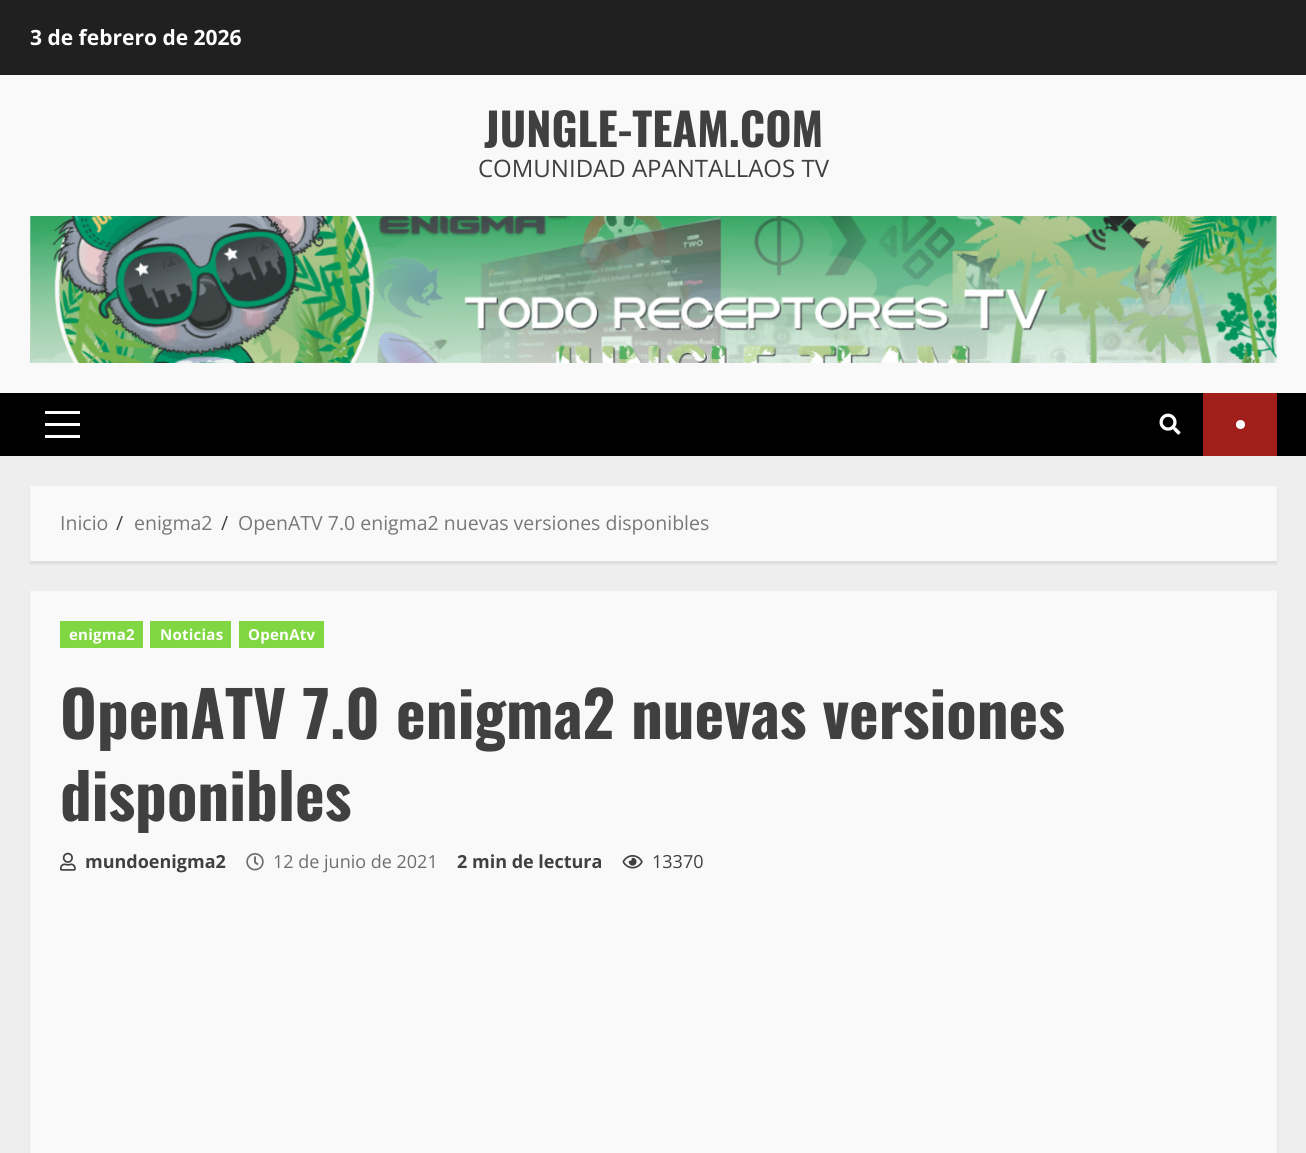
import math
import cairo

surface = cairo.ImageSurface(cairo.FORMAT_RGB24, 1306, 1153)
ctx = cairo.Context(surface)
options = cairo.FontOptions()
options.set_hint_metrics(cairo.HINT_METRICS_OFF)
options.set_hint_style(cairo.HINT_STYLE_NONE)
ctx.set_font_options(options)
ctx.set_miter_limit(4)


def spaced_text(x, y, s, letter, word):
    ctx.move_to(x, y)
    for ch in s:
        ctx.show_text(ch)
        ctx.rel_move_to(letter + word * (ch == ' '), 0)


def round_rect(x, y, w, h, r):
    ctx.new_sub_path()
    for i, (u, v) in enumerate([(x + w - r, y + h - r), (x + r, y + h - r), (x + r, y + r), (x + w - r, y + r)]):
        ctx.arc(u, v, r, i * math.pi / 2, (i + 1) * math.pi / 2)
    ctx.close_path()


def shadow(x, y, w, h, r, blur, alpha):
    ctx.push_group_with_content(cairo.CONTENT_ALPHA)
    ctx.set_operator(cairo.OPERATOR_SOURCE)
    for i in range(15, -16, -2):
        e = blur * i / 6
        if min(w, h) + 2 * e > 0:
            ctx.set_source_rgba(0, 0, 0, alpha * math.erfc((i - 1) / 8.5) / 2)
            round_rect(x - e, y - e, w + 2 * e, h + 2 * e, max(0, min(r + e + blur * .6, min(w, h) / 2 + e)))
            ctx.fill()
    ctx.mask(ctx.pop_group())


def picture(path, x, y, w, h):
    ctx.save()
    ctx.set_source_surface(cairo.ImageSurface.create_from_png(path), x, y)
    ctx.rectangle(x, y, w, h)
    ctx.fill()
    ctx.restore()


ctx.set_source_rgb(0.933, 0.933, 0.933)
ctx.paint()
ctx.set_source_rgb(0.125, 0.125, 0.125)
ctx.rectangle(0, 0, 1306, 75)
ctx.fill()
ctx.select_font_face("Open Sans", cairo.FONT_SLANT_NORMAL, cairo.FONT_WEIGHT_BOLD)
ctx.set_font_size(21)
ctx.set_source_rgb(1, 1, 1)
ctx.move_to(30, 45)
ctx.show_text("3 de febrero de 2026")
ctx.set_source_rgb(0.976, 0.976, 0.976)
ctx.rectangle(0, 75, 1306, 318)
ctx.fill()
ctx.select_font_face("Oswald", cairo.FONT_SLANT_NORMAL, cairo.FONT_WEIGHT_BOLD)
ctx.set_font_size(45)
ctx.set_source_rgb(0.251, 0.251, 0.251)
ctx.move_to(484, 147)
ctx.show_text("JUNGLE-TEAM.COM")
ctx.select_font_face("Open Sans")
ctx.set_font_size(24)
ctx.move_to(478, 177)
ctx.show_text("COMUNIDAD APANTALLAOS TV")
picture("img1.png", 30, 216, 1247, 147)
ctx.set_source_rgb(0, 0, 0)
ctx.rectangle(0, 393, 1306, 63)
ctx.fill()
ctx.set_source_rgb(1, 1, 1)
ctx.rectangle(45, 423, 35, 3)
ctx.fill()
ctx.rectangle(45, 411, 35, 3)
ctx.fill()
ctx.rectangle(45, 435, 35, 3)
ctx.fill()
picture("img2.png", 1159, 413, 22, 22)
ctx.set_source_rgb(0.631, 0.122, 0.106)
ctx.rectangle(1203, 393, 74, 63)
ctx.fill()
ctx.set_source_rgb(1, 1, 1)
ctx.arc(1240.5, 424.5, 4.5, 0, 2 * math.pi)
ctx.fill()
ctx.set_source_rgb(0, 0, 0)
shadow(30, 489, 1247, 75, 0, 1.5, 0.08)
ctx.set_source_rgb(0.976, 0.976, 0.976)
ctx.rectangle(30, 486, 1247, 75)
ctx.fill()
ctx.set_font_size(19.5)
ctx.set_source_rgb(0.471, 0.471, 0.471)
ctx.move_to(60, 530)
ctx.show_text("Inicio")
ctx.set_source_rgb(0.251, 0.251, 0.251)
ctx.move_to(116, 530)
ctx.show_text("/")
ctx.set_source_rgb(0.471, 0.471, 0.471)
ctx.move_to(134, 530)
ctx.show_text("enigma2")
ctx.set_source_rgb(0.251, 0.251, 0.251)
ctx.move_to(221, 530)
ctx.show_text("/")
ctx.set_source_rgb(0.471, 0.471, 0.471)
ctx.move_to(238, 530)
ctx.show_text("OpenATV 7.0 enigma2 nuevas versiones disponibles")
ctx.set_source_rgb(0, 0, 0)
shadow(30, 594, 1247, 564, 0, 1.5, 0.08)
ctx.set_source_rgb(0.976, 0.976, 0.976)
ctx.rectangle(30, 591, 1247, 562)
ctx.fill()
ctx.set_source_rgb(0.506, 0.843, 0.259)
ctx.rectangle(60, 621, 83, 27)
ctx.fill()
ctx.select_font_face("Open Sans", cairo.FONT_SLANT_NORMAL, cairo.FONT_WEIGHT_BOLD)
ctx.set_font_size(15)
ctx.set_source_rgb(1, 1, 1)
spaced_text(69, 640, "enigma2", 0.25, 0)
ctx.set_source_rgb(0.506, 0.843, 0.259)
ctx.rectangle(150, 621, 81, 27)
ctx.fill()
ctx.set_source_rgb(1, 1, 1)
spaced_text(160, 640, "Noticias", 0.25, 0)
ctx.set_source_rgb(0.506, 0.843, 0.259)
ctx.rectangle(239, 621, 85, 27)
ctx.fill()
ctx.set_source_rgb(1, 1, 1)
spaced_text(248, 640, "OpenAtv", 0.25, 0)
ctx.select_font_face("Oswald", cairo.FONT_SLANT_NORMAL, cairo.FONT_WEIGHT_BOLD)
ctx.set_font_size(63)
ctx.set_source_rgb(0.251, 0.251, 0.251)
ctx.move_to(60, 739)
ctx.show_text("OpenATV 7.0 enigma2 nuevas versiones")
ctx.move_to(60, 821)
ctx.show_text("disponibles")
picture("img3.png", 60, 852, 16, 19)
ctx.select_font_face("Open Sans", cairo.FONT_SLANT_NORMAL, cairo.FONT_WEIGHT_BOLD)
ctx.set_font_size(18)
ctx.move_to(85, 868)
ctx.show_text("mundoenigma2")
picture("img4.png", 246, 853, 18, 18)
ctx.select_font_face("Open Sans")
ctx.set_source_rgb(0.431, 0.431, 0.431)
ctx.move_to(273, 868)
ctx.show_text("12 de junio de 2021")
ctx.select_font_face("Open Sans", cairo.FONT_SLANT_NORMAL, cairo.FONT_WEIGHT_BOLD)
ctx.set_source_rgb(0.251, 0.251, 0.251)
ctx.move_to(457, 868)
ctx.show_text("2 min de lectura")
picture("img5.png", 622, 855, 21, 14)
ctx.select_font_face("Open Sans")
ctx.move_to(652, 868)
ctx.show_text("13370")
surface.write_to_png("page.png")
